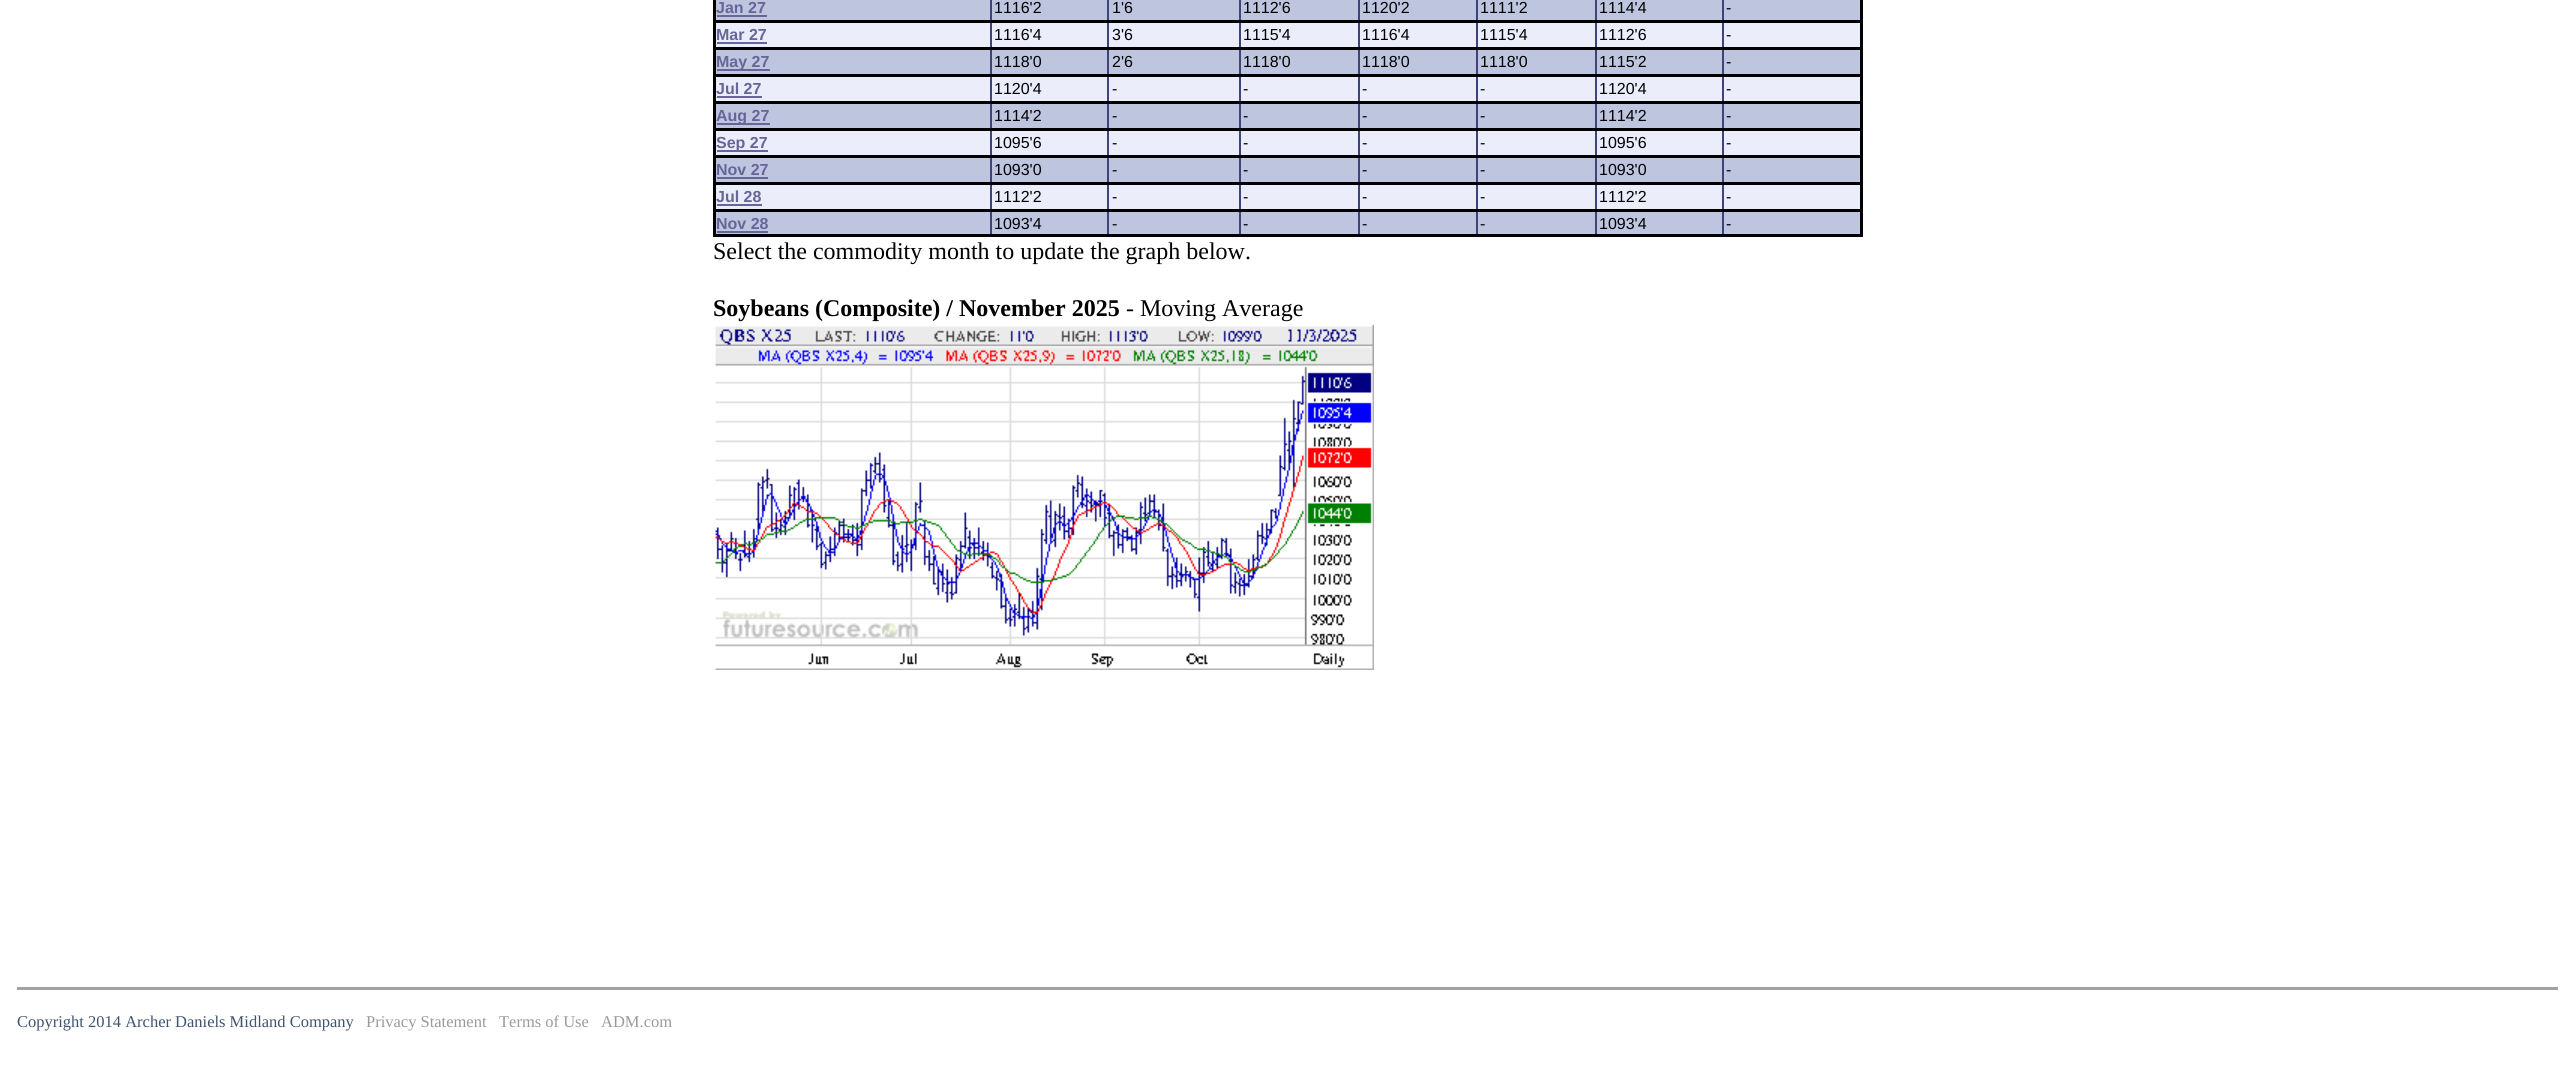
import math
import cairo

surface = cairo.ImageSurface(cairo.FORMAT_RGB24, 2573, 1075)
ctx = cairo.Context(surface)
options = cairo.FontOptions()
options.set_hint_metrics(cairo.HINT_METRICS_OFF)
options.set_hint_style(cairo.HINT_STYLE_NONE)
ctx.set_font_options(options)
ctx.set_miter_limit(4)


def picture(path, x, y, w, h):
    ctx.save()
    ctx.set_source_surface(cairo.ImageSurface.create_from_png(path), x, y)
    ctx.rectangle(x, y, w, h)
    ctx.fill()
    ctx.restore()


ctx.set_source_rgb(1, 1, 1)
ctx.paint()
ctx.set_source_rgb(0.745, 0.773, 0.875)
ctx.rectangle(716, 0, 1144, 20)
ctx.fill()
ctx.select_font_face("Liberation Sans", cairo.FONT_SLANT_NORMAL, cairo.FONT_WEIGHT_BOLD)
ctx.set_font_size(16)
ctx.set_source_rgb(0.4, 0.4, 0.6)
ctx.move_to(716, 13)
ctx.show_text("Jan 27")
ctx.rectangle(717, 15, 50, 2)
ctx.fill()
ctx.select_font_face("Liberation Sans")
ctx.set_source_rgb(0, 0, 0)
ctx.move_to(994, 13)
ctx.show_text("1116'2")
ctx.move_to(1112, 13)
ctx.show_text("1'6")
ctx.move_to(1243, 13)
ctx.show_text("1112'6")
ctx.move_to(1362, 13)
ctx.show_text("1120'2")
ctx.move_to(1480, 13)
ctx.show_text("1111'2")
ctx.move_to(1599, 13)
ctx.show_text("1114'4")
ctx.move_to(1726, 13)
ctx.show_text("-")
ctx.set_source_rgb(0.922, 0.929, 0.98)
ctx.rectangle(716, 23, 1144, 24)
ctx.fill()
ctx.set_source_rgb(0.745, 0.773, 0.875)
ctx.rectangle(716, 50, 1144, 24)
ctx.fill()
ctx.set_source_rgb(0.922, 0.929, 0.98)
ctx.rectangle(716, 77, 1144, 24)
ctx.fill()
ctx.set_source_rgb(0.745, 0.773, 0.875)
ctx.rectangle(716, 104, 1144, 24)
ctx.fill()
ctx.set_source_rgb(0.922, 0.929, 0.98)
ctx.rectangle(716, 131, 1144, 24)
ctx.fill()
ctx.set_source_rgb(0.745, 0.773, 0.875)
ctx.rectangle(716, 158, 1144, 24)
ctx.fill()
ctx.set_source_rgb(0.922, 0.929, 0.98)
ctx.rectangle(716, 185, 1144, 24)
ctx.fill()
ctx.set_source_rgb(0.745, 0.773, 0.875)
ctx.rectangle(716, 212, 1144, 22)
ctx.fill()
ctx.set_source_rgb(0.243, 0.263, 0.475)
ctx.rectangle(990, 0, 2, 236)
ctx.fill()
ctx.rectangle(1107, 0, 2, 236)
ctx.fill()
ctx.rectangle(1239, 0, 2, 236)
ctx.fill()
ctx.rectangle(1358, 0, 2, 236)
ctx.fill()
ctx.rectangle(1476, 0, 2, 236)
ctx.fill()
ctx.rectangle(1595, 0, 2, 236)
ctx.fill()
ctx.rectangle(1722, 0, 2, 236)
ctx.fill()
ctx.set_source_rgb(0, 0, 0)
ctx.rectangle(713, 20, 1150, 3)
ctx.fill()
ctx.rectangle(713, 47, 1150, 3)
ctx.fill()
ctx.rectangle(713, 74, 1150, 3)
ctx.fill()
ctx.rectangle(713, 101, 1150, 3)
ctx.fill()
ctx.rectangle(713, 128, 1150, 3)
ctx.fill()
ctx.rectangle(713, 155, 1150, 3)
ctx.fill()
ctx.rectangle(713, 182, 1150, 3)
ctx.fill()
ctx.rectangle(713, 209, 1150, 3)
ctx.fill()
ctx.rectangle(1860, 209, 3, 28)
ctx.fill()
ctx.rectangle(1860, 182, 3, 30)
ctx.fill()
ctx.rectangle(1860, 155, 3, 30)
ctx.fill()
ctx.rectangle(1860, 128, 3, 30)
ctx.fill()
ctx.rectangle(1860, 101, 3, 30)
ctx.fill()
ctx.rectangle(1860, 74, 3, 30)
ctx.fill()
ctx.rectangle(1860, 47, 3, 30)
ctx.fill()
ctx.rectangle(1860, 0, 3, 50)
ctx.fill()
ctx.rectangle(713, 234, 1150, 3)
ctx.fill()
ctx.rectangle(713, 209, 3, 28)
ctx.fill()
ctx.rectangle(713, 182, 3, 30)
ctx.fill()
ctx.rectangle(713, 155, 3, 30)
ctx.fill()
ctx.rectangle(713, 128, 3, 30)
ctx.fill()
ctx.rectangle(713, 101, 3, 30)
ctx.fill()
ctx.rectangle(713, 74, 3, 30)
ctx.fill()
ctx.rectangle(713, 47, 3, 30)
ctx.fill()
ctx.rectangle(713, 0, 3, 50)
ctx.fill()
ctx.select_font_face("Liberation Sans", cairo.FONT_SLANT_NORMAL, cairo.FONT_WEIGHT_BOLD)
ctx.set_source_rgb(0.4, 0.4, 0.6)
ctx.move_to(716, 40)
ctx.show_text("Mar 27")
ctx.rectangle(717, 42, 50, 2)
ctx.fill()
ctx.select_font_face("Liberation Sans")
ctx.set_source_rgb(0, 0, 0)
ctx.move_to(994, 40)
ctx.show_text("1116'4")
ctx.move_to(1112, 40)
ctx.show_text("3'6")
ctx.move_to(1243, 40)
ctx.show_text("1115'4")
ctx.move_to(1362, 40)
ctx.show_text("1116'4")
ctx.move_to(1480, 40)
ctx.show_text("1115'4")
ctx.move_to(1599, 40)
ctx.show_text("1112'6")
ctx.move_to(1726, 40)
ctx.show_text("-")
ctx.set_source_rgb(0.4, 0.4, 0.6)
ctx.rectangle(717, 69, 53, 2)
ctx.fill()
ctx.select_font_face("Liberation Sans", cairo.FONT_SLANT_NORMAL, cairo.FONT_WEIGHT_BOLD)
ctx.move_to(716, 67)
ctx.show_text("May 27")
ctx.select_font_face("Liberation Sans")
ctx.set_source_rgb(0, 0, 0)
ctx.move_to(994, 67)
ctx.show_text("1118'0")
ctx.move_to(1112, 67)
ctx.show_text("2'6")
ctx.move_to(1243, 67)
ctx.show_text("1118'0")
ctx.move_to(1362, 67)
ctx.show_text("1118'0")
ctx.move_to(1480, 67)
ctx.show_text("1118'0")
ctx.move_to(1599, 67)
ctx.show_text("1115'2")
ctx.move_to(1726, 67)
ctx.show_text("-")
ctx.select_font_face("Liberation Sans", cairo.FONT_SLANT_NORMAL, cairo.FONT_WEIGHT_BOLD)
ctx.set_source_rgb(0.4, 0.4, 0.6)
ctx.move_to(716, 94)
ctx.show_text("Jul 27")
ctx.rectangle(717, 96, 45, 2)
ctx.fill()
ctx.select_font_face("Liberation Sans")
ctx.set_source_rgb(0, 0, 0)
ctx.move_to(994, 94)
ctx.show_text("1120'4")
ctx.move_to(1112, 94)
ctx.show_text("-")
ctx.move_to(1243, 94)
ctx.show_text("-")
ctx.move_to(1362, 94)
ctx.show_text("-")
ctx.move_to(1480, 94)
ctx.show_text("-")
ctx.move_to(1599, 94)
ctx.show_text("1120'4")
ctx.move_to(1726, 94)
ctx.show_text("-")
ctx.set_source_rgb(0.4, 0.4, 0.6)
ctx.rectangle(717, 123, 53, 2)
ctx.fill()
ctx.select_font_face("Liberation Sans", cairo.FONT_SLANT_NORMAL, cairo.FONT_WEIGHT_BOLD)
ctx.move_to(716, 121)
ctx.show_text("Aug 27")
ctx.select_font_face("Liberation Sans")
ctx.set_source_rgb(0, 0, 0)
ctx.move_to(994, 121)
ctx.show_text("1114'2")
ctx.move_to(1112, 121)
ctx.show_text("-")
ctx.move_to(1243, 121)
ctx.show_text("-")
ctx.move_to(1362, 121)
ctx.show_text("-")
ctx.move_to(1480, 121)
ctx.show_text("-")
ctx.move_to(1599, 121)
ctx.show_text("1114'2")
ctx.move_to(1726, 121)
ctx.show_text("-")
ctx.set_source_rgb(0.4, 0.4, 0.6)
ctx.rectangle(717, 150, 51, 2)
ctx.fill()
ctx.select_font_face("Liberation Sans", cairo.FONT_SLANT_NORMAL, cairo.FONT_WEIGHT_BOLD)
ctx.move_to(716, 148)
ctx.show_text("Sep 27")
ctx.select_font_face("Liberation Sans")
ctx.set_source_rgb(0, 0, 0)
ctx.move_to(994, 148)
ctx.show_text("1095'6")
ctx.move_to(1112, 148)
ctx.show_text("-")
ctx.move_to(1243, 148)
ctx.show_text("-")
ctx.move_to(1362, 148)
ctx.show_text("-")
ctx.move_to(1480, 148)
ctx.show_text("-")
ctx.move_to(1599, 148)
ctx.show_text("1095'6")
ctx.move_to(1726, 148)
ctx.show_text("-")
ctx.select_font_face("Liberation Sans", cairo.FONT_SLANT_NORMAL, cairo.FONT_WEIGHT_BOLD)
ctx.set_source_rgb(0.4, 0.4, 0.6)
ctx.move_to(716, 175)
ctx.show_text("Nov 27")
ctx.rectangle(717, 177, 51, 2)
ctx.fill()
ctx.select_font_face("Liberation Sans")
ctx.set_source_rgb(0, 0, 0)
ctx.move_to(994, 175)
ctx.show_text("1093'0")
ctx.move_to(1112, 175)
ctx.show_text("-")
ctx.move_to(1243, 175)
ctx.show_text("-")
ctx.move_to(1362, 175)
ctx.show_text("-")
ctx.move_to(1480, 175)
ctx.show_text("-")
ctx.move_to(1599, 175)
ctx.show_text("1093'0")
ctx.move_to(1726, 175)
ctx.show_text("-")
ctx.select_font_face("Liberation Sans", cairo.FONT_SLANT_NORMAL, cairo.FONT_WEIGHT_BOLD)
ctx.set_source_rgb(0.4, 0.4, 0.6)
ctx.move_to(716, 202)
ctx.show_text("Jul 28")
ctx.rectangle(717, 204, 45, 2)
ctx.fill()
ctx.select_font_face("Liberation Sans")
ctx.set_source_rgb(0, 0, 0)
ctx.move_to(994, 202)
ctx.show_text("1112'2")
ctx.move_to(1112, 202)
ctx.show_text("-")
ctx.move_to(1243, 202)
ctx.show_text("-")
ctx.move_to(1362, 202)
ctx.show_text("-")
ctx.move_to(1480, 202)
ctx.show_text("-")
ctx.move_to(1599, 202)
ctx.show_text("1112'2")
ctx.move_to(1726, 202)
ctx.show_text("-")
ctx.select_font_face("Liberation Sans", cairo.FONT_SLANT_NORMAL, cairo.FONT_WEIGHT_BOLD)
ctx.set_source_rgb(0.4, 0.4, 0.6)
ctx.move_to(716, 229)
ctx.show_text("Nov 28")
ctx.rectangle(717, 231, 51, 2)
ctx.fill()
ctx.select_font_face("Liberation Sans")
ctx.set_source_rgb(0, 0, 0)
ctx.move_to(994, 229)
ctx.show_text("1093'4")
ctx.move_to(1112, 229)
ctx.show_text("-")
ctx.move_to(1243, 229)
ctx.show_text("-")
ctx.move_to(1362, 229)
ctx.show_text("-")
ctx.move_to(1480, 229)
ctx.show_text("-")
ctx.move_to(1599, 229)
ctx.show_text("1093'4")
ctx.move_to(1726, 229)
ctx.show_text("-")
ctx.select_font_face("Liberation Serif")
ctx.set_font_size(24)
ctx.move_to(713, 259)
ctx.show_text("Select the commodity month to update the graph below.")
ctx.select_font_face("Liberation Serif", cairo.FONT_SLANT_NORMAL, cairo.FONT_WEIGHT_BOLD)
ctx.move_to(713, 316)
ctx.show_text("Soybeans (Composite) / November 2025")
ctx.select_font_face("Liberation Serif")
ctx.move_to(1126, 316)
ctx.show_text("- Moving Average")
picture("img1.png", 715, 325, 659, 345)
ctx.set_source_rgb(0.631, 0.631, 0.631)
ctx.rectangle(17, 987, 2541, 3)
ctx.fill()
ctx.set_font_size(16.5)
ctx.set_source_rgb(0.243, 0.329, 0.431)
ctx.move_to(17, 1027)
ctx.show_text("Copyright 2014 Archer Daniels Midland Company")
ctx.set_source_rgb(0.604, 0.604, 0.604)
ctx.move_to(366, 1027)
ctx.show_text("Privacy Statement")
ctx.move_to(499, 1027)
ctx.show_text("Terms of Use")
ctx.move_to(601, 1027)
ctx.show_text("ADM.com")
surface.write_to_png("page.png")
